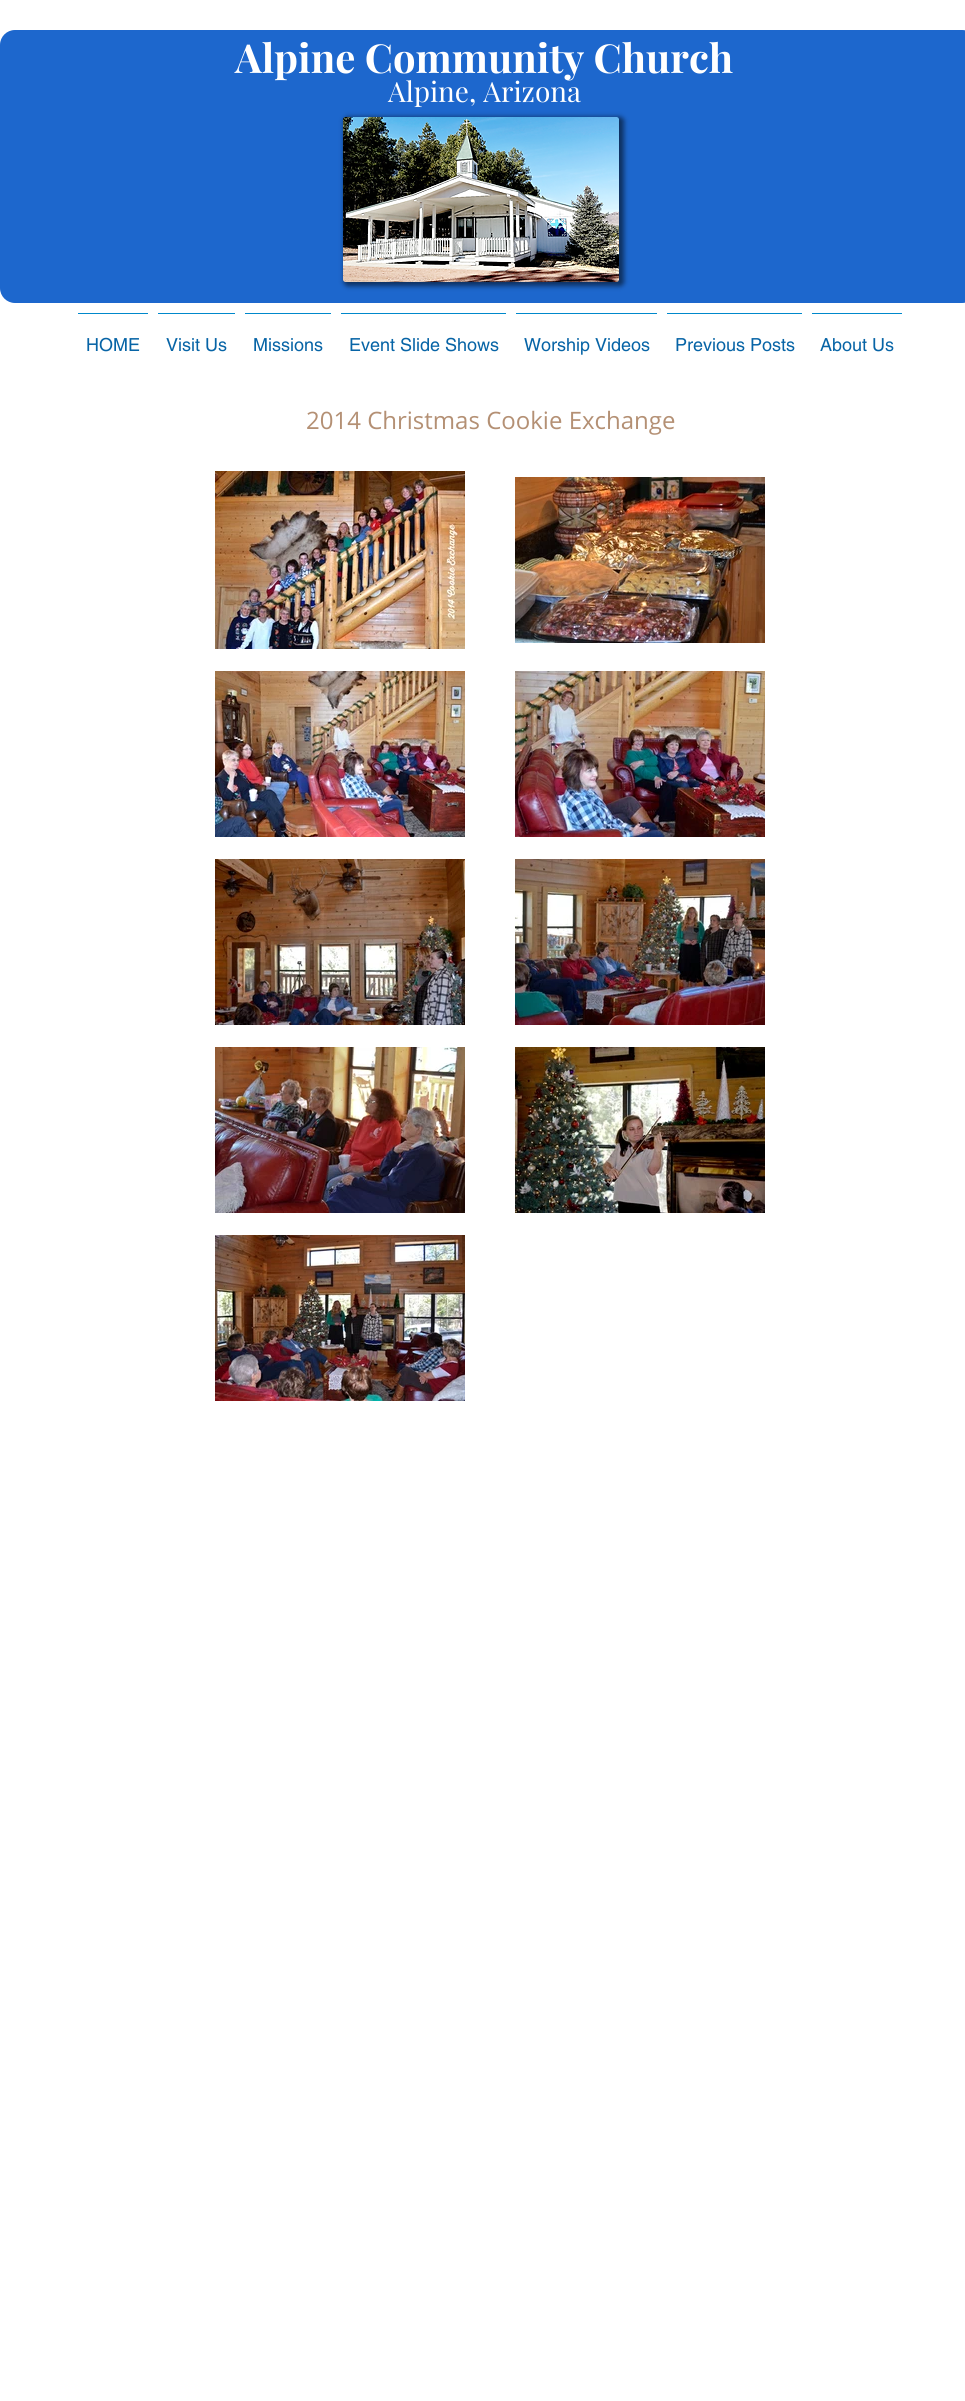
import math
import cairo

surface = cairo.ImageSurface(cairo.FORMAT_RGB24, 965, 2401)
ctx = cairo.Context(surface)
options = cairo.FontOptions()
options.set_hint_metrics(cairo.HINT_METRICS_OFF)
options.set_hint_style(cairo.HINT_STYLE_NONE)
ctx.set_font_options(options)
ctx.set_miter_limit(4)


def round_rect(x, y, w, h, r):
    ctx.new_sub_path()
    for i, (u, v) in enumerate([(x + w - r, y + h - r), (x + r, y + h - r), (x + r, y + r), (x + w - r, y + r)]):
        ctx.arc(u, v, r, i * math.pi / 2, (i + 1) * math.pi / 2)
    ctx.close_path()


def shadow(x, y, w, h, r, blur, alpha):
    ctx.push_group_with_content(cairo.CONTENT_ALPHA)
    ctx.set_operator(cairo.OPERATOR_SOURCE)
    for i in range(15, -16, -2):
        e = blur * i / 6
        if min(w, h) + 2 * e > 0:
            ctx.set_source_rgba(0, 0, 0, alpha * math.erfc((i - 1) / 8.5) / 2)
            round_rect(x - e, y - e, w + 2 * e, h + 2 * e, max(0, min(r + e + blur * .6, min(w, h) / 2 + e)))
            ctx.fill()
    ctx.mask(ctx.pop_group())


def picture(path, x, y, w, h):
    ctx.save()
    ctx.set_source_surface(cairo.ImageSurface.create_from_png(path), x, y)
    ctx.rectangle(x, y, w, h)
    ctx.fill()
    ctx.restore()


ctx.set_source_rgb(1, 1, 1)
ctx.paint()
ctx.set_source_rgb(0.114, 0.404, 0.804)
round_rect(0, 30, 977, 273, 15)
ctx.fill()
ctx.select_font_face("Playfair Display", cairo.FONT_SLANT_NORMAL, cairo.FONT_WEIGHT_BOLD)
ctx.set_font_size(40)
ctx.set_source_rgb(1, 1, 1)
ctx.move_to(235, 73)
ctx.show_text("Alpine Community Church")
ctx.select_font_face("Playfair Display")
ctx.set_font_size(28)
ctx.move_to(388, 102)
ctx.show_text("Alpine, Arizona")
ctx.set_source_rgb(0, 0, 0)
shadow(344, 117, 280, 169, 4, 2.5, 0.53)
picture("img1.png", 343, 117, 276, 165)
ctx.set_source_rgb(0, 0.533, 0.796)
ctx.rectangle(78, 313, 70, 1)
ctx.fill()
ctx.select_font_face("helvetica")
ctx.set_font_size(18)
ctx.set_source_rgb(0.031, 0.392, 0.651)
ctx.move_to(86, 351)
ctx.show_text("HOME")
ctx.set_source_rgb(0, 0.533, 0.796)
ctx.rectangle(158, 313, 77, 1)
ctx.fill()
ctx.set_source_rgb(0.031, 0.392, 0.651)
ctx.move_to(166, 351)
ctx.show_text("Visit Us")
ctx.set_source_rgb(0, 0.533, 0.796)
ctx.rectangle(245, 313, 86, 1)
ctx.fill()
ctx.set_source_rgb(0.031, 0.392, 0.651)
ctx.move_to(253, 351)
ctx.show_text("Missions")
ctx.set_source_rgb(0, 0.533, 0.796)
ctx.rectangle(341, 313, 165, 1)
ctx.fill()
ctx.set_source_rgb(0.031, 0.392, 0.651)
ctx.move_to(349, 351)
ctx.show_text("Event Slide Shows")
ctx.set_source_rgb(0, 0.533, 0.796)
ctx.rectangle(516, 313, 141, 1)
ctx.fill()
ctx.set_source_rgb(0.031, 0.392, 0.651)
ctx.move_to(524, 351)
ctx.show_text("Worship Videos")
ctx.set_source_rgb(0, 0.533, 0.796)
ctx.rectangle(667, 313, 135, 1)
ctx.fill()
ctx.set_source_rgb(0.031, 0.392, 0.651)
ctx.move_to(675, 351)
ctx.show_text("Previous Posts")
ctx.set_source_rgb(0, 0.533, 0.796)
ctx.rectangle(812, 313, 90, 1)
ctx.fill()
ctx.set_source_rgb(0.031, 0.392, 0.651)
ctx.move_to(820, 351)
ctx.show_text("About Us")
ctx.select_font_face("Open Sans")
ctx.set_font_size(24)
ctx.set_source_rgb(0.706, 0.565, 0.455)
ctx.move_to(306, 429)
ctx.show_text("2014 Christmas Cookie Exchange")
picture("img2.png", 215, 471, 250, 178)
picture("img3.png", 515, 477, 250, 166)
picture("img4.png", 215, 671, 250, 166)
picture("img5.png", 515, 671, 250, 166)
picture("img6.png", 215, 859, 250, 166)
picture("img7.png", 515, 859, 250, 166)
picture("img8.png", 215, 1047, 250, 166)
picture("img9.png", 515, 1047, 250, 166)
picture("img10.png", 215, 1235, 250, 166)
surface.write_to_png("page.png")
